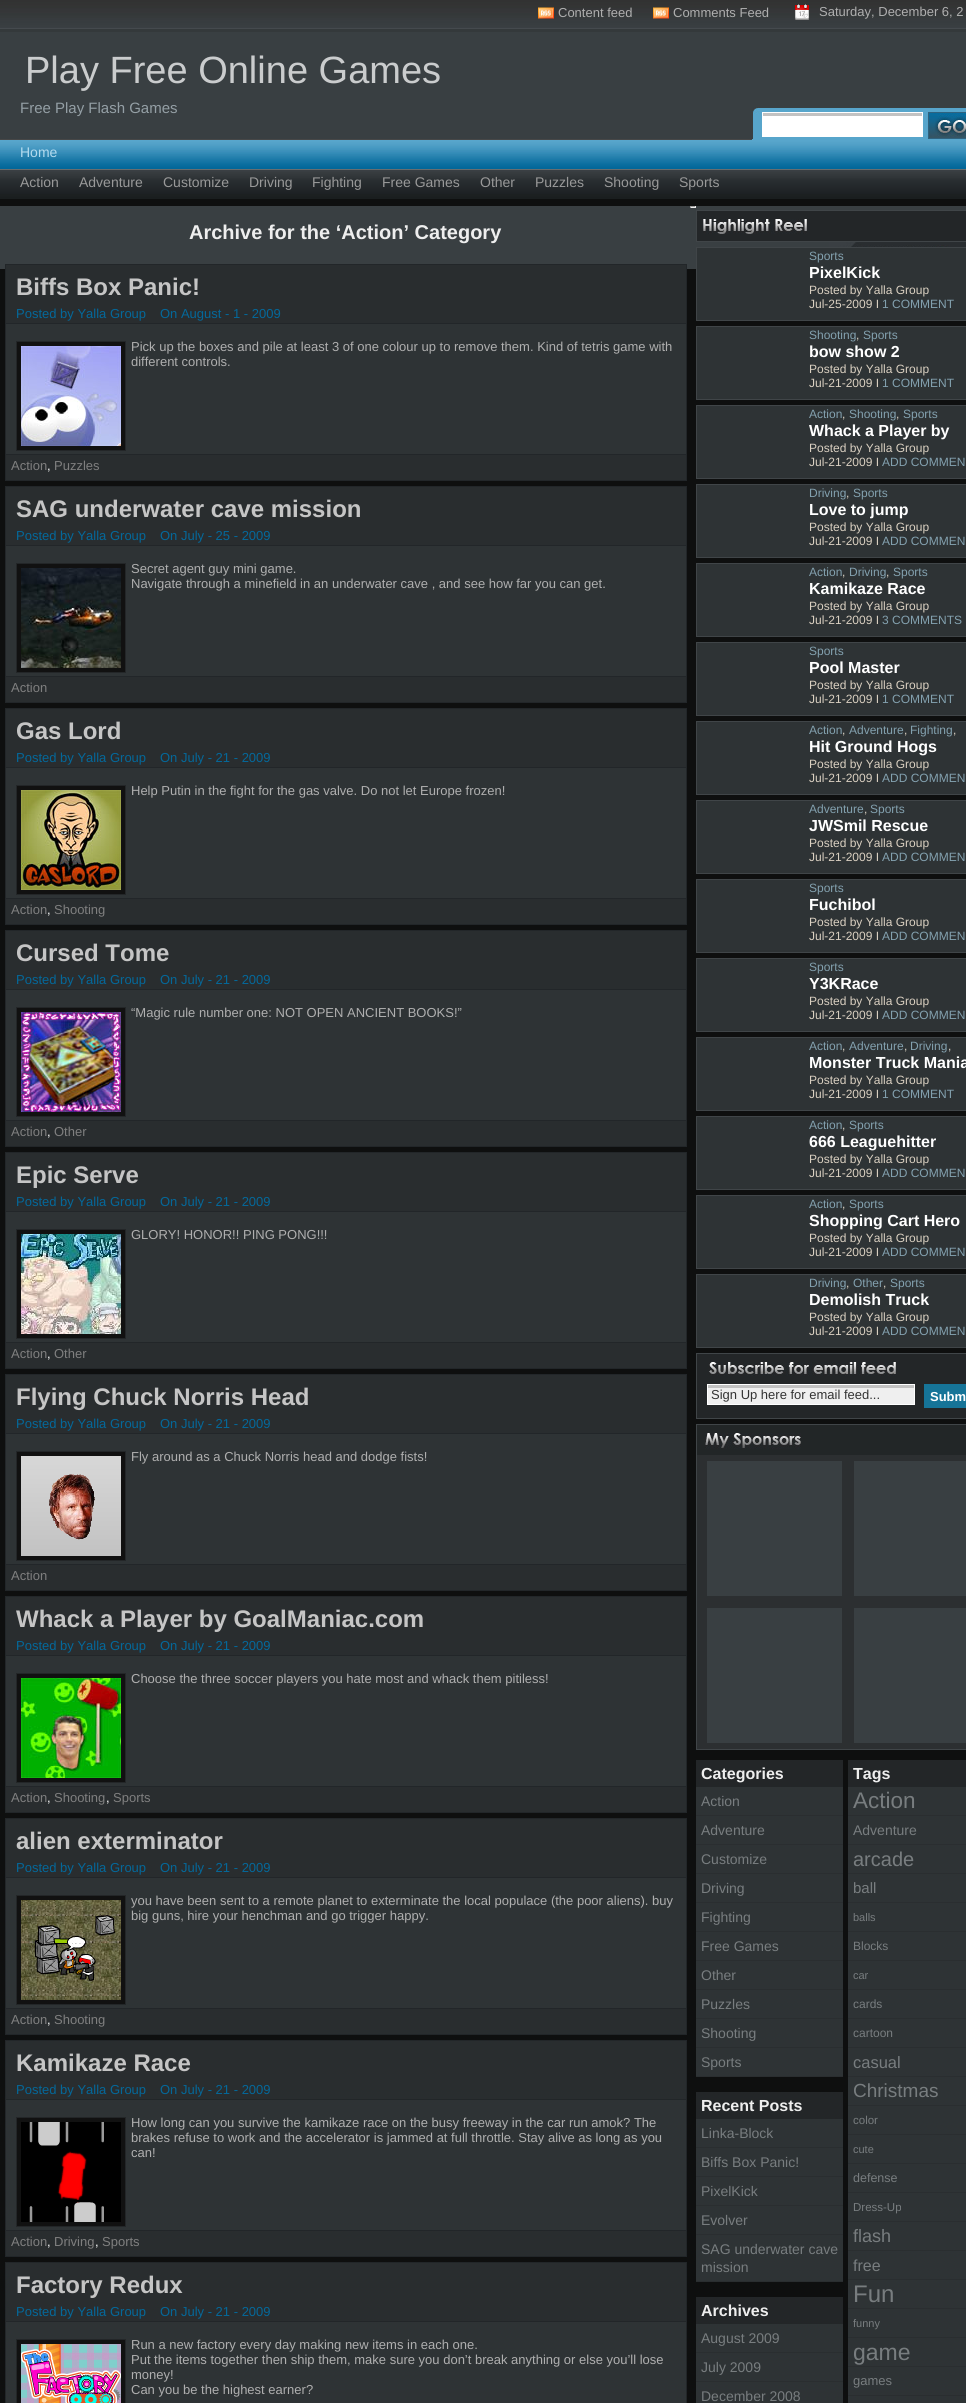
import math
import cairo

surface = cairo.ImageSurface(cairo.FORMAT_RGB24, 966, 2403)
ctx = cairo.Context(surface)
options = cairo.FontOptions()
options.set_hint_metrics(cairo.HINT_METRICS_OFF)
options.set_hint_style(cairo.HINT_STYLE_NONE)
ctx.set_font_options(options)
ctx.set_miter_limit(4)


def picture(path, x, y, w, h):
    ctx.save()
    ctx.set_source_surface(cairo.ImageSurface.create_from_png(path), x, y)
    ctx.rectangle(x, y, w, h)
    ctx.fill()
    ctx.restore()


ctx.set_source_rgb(0.055, 0.059, 0.059)
ctx.paint()
picture("img1.png", 0, 0, 966, 29)
picture("img2.png", 538, 7, 16, 12)
ctx.select_font_face("Liberation Sans")
ctx.set_font_size(13)
ctx.set_source_rgb(0.686, 0.686, 0.686)
ctx.move_to(558, 17)
ctx.show_text("Content feed")
picture("img2.png", 653, 7, 16, 12)
ctx.move_to(673, 17)
ctx.show_text("Comments Feed")
picture("img3.png", 795, 4, 14, 16)
ctx.move_to(819, 16)
ctx.show_text("Saturday, December 6, 2")
ctx.set_source_rgb(0.224, 0.247, 0.259)
ctx.rectangle(0, 32, 966, 107)
ctx.fill()
ctx.set_source_rgb(0.204, 0.224, 0.231)
ctx.rectangle(0, 29, 966, 3)
ctx.fill()
ctx.set_font_size(38)
ctx.set_source_rgb(0.792, 0.8, 0.804)
ctx.move_to(25, 83)
ctx.show_text("Play Free Online Games")
ctx.set_font_size(15)
ctx.set_source_rgb(0.58, 0.624, 0.647)
ctx.move_to(20, 113)
ctx.show_text("Free Play Flash Games")
picture("img4.png", 752, 107, 214, 33)
ctx.set_source_rgb(1, 1, 1)
ctx.rectangle(763, 116, 159, 20)
ctx.fill()
ctx.set_source_rgb(0.761, 0.761, 0.761)
ctx.rectangle(762, 113, 161, 3)
ctx.fill()
ctx.rectangle(762.5, 112.5, 160, 24)
ctx.set_source_rgb(1, 1, 1)
ctx.set_line_width(1)
ctx.stroke()
picture("img5.png", 929, 113, 37, 25)
ctx.rectangle(928.5, 112.5, 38, 26)
ctx.set_source_rgb(0.188, 0.384, 0.494)
ctx.stroke()
picture("img6.png", 0, 140, 966, 29)
ctx.set_source_rgb(0.278, 0.278, 0.278)
ctx.rectangle(0, 139, 752, 1)
ctx.fill()
ctx.set_font_size(14)
ctx.set_source_rgb(0.702, 0.859, 0.937)
ctx.move_to(20, 157)
ctx.show_text("Home")
picture("img7.png", 0, 170, 966, 29)
ctx.set_source_rgb(0.408, 0.427, 0.435)
ctx.rectangle(0, 169, 966, 1)
ctx.fill()
ctx.set_source_rgb(0.6, 0.6, 0.6)
ctx.move_to(20, 187)
ctx.show_text("Action")
ctx.move_to(79, 187)
ctx.show_text("Adventure")
ctx.move_to(163, 187)
ctx.show_text("Customize")
ctx.move_to(249, 187)
ctx.show_text("Driving")
ctx.move_to(312, 187)
ctx.show_text("Fighting")
ctx.move_to(382, 187)
ctx.show_text("Free Games")
ctx.move_to(480, 187)
ctx.show_text("Other")
ctx.move_to(535, 187)
ctx.show_text("Puzzles")
ctx.move_to(604, 187)
ctx.show_text("Shooting")
ctx.move_to(679, 187)
ctx.show_text("Sports")
ctx.set_source_rgb(0.224, 0.247, 0.259)
ctx.rectangle(0, 206, 966, 63)
ctx.fill()
picture("img8.png", 829, 242, 137, 5)
ctx.set_source_rgb(0.624, 0.624, 0.624)
ctx.rectangle(690, 206, 6, 1)
ctx.fill()
ctx.set_source_rgb(0.933, 0.933, 0.933)
ctx.rectangle(695, 206, 1, 2)
ctx.fill()
ctx.rectangle(690, 207, 6, 1)
ctx.fill()
ctx.set_source_rgb(0.624, 0.624, 0.624)
ctx.rectangle(690, 206, 1, 2)
ctx.fill()
ctx.select_font_face("Liberation Sans", cairo.FONT_SLANT_NORMAL, cairo.FONT_WEIGHT_BOLD)
ctx.set_font_size(20)
ctx.set_source_rgb(0.933, 0.933, 0.933)
ctx.move_to(189, 239)
ctx.show_text("Archive for the ‘Action’ Category")
ctx.rectangle(5.5, 264.5, 681, 216)
ctx.set_source_rgb(0.133, 0.149, 0.161)
ctx.stroke()
ctx.set_source_rgb(0.161, 0.176, 0.184)
ctx.rectangle(6, 265, 680, 58)
ctx.fill()
ctx.set_source_rgb(0.133, 0.149, 0.161)
ctx.rectangle(6, 323, 680, 1)
ctx.fill()
ctx.set_font_size(24)
ctx.set_source_rgb(0.773, 0.773, 0.773)
ctx.move_to(16, 295)
ctx.show_text("Biffs Box Panic!")
ctx.select_font_face("Liberation Sans")
ctx.set_font_size(13)
ctx.set_source_rgb(0.016, 0.408, 0.604)
ctx.move_to(16, 318)
ctx.show_text("Posted by Yalla Group")
ctx.move_to(160, 318)
ctx.show_text("On August - 1 - 2009")
ctx.set_source_rgb(0.18, 0.2, 0.208)
ctx.rectangle(6, 324, 680, 130)
ctx.fill()
ctx.set_source_rgb(0.067, 0.067, 0.067)
ctx.rectangle(16.5, 341.5, 109, 109)
ctx.fill_preserve()
ctx.set_source_rgb(0.137, 0.149, 0.157)
ctx.stroke()
picture("img9.png", 21, 346, 100, 100)
ctx.set_source_rgb(0.686, 0.686, 0.686)
ctx.move_to(131, 351)
ctx.show_text("Pick up the boxes and pile at least 3 of one colour up to remove them. Kind of tetris game with")
ctx.move_to(131, 366)
ctx.show_text("different controls.")
ctx.set_source_rgb(0.161, 0.176, 0.184)
ctx.rectangle(6, 455, 680, 25)
ctx.fill()
ctx.set_source_rgb(0.133, 0.149, 0.161)
ctx.rectangle(6, 454, 680, 1)
ctx.fill()
ctx.set_source_rgb(0.498, 0.498, 0.498)
ctx.move_to(11, 470)
ctx.show_text("Action")
ctx.set_source_rgb(1, 1, 1)
ctx.move_to(47, 470)
ctx.show_text(",")
ctx.set_source_rgb(0.498, 0.498, 0.498)
ctx.move_to(54, 470)
ctx.show_text("Puzzles")
ctx.rectangle(5.5, 486.5, 681, 216)
ctx.set_source_rgb(0.133, 0.149, 0.161)
ctx.stroke()
ctx.set_source_rgb(0.161, 0.176, 0.184)
ctx.rectangle(6, 487, 680, 58)
ctx.fill()
ctx.set_source_rgb(0.133, 0.149, 0.161)
ctx.rectangle(6, 545, 680, 1)
ctx.fill()
ctx.select_font_face("Liberation Sans", cairo.FONT_SLANT_NORMAL, cairo.FONT_WEIGHT_BOLD)
ctx.set_font_size(24)
ctx.set_source_rgb(0.773, 0.773, 0.773)
ctx.move_to(16, 517)
ctx.show_text("SAG underwater cave mission")
ctx.select_font_face("Liberation Sans")
ctx.set_font_size(13)
ctx.set_source_rgb(0.016, 0.408, 0.604)
ctx.move_to(16, 540)
ctx.show_text("Posted by Yalla Group")
ctx.move_to(160, 540)
ctx.show_text("On July - 25 - 2009")
ctx.set_source_rgb(0.18, 0.2, 0.208)
ctx.rectangle(6, 546, 680, 130)
ctx.fill()
ctx.set_source_rgb(0.067, 0.067, 0.067)
ctx.rectangle(16.5, 563.5, 109, 109)
ctx.fill_preserve()
ctx.set_source_rgb(0.137, 0.149, 0.157)
ctx.stroke()
picture("img10.png", 21, 568, 100, 100)
ctx.set_source_rgb(0.686, 0.686, 0.686)
ctx.move_to(131, 573)
ctx.show_text("Secret agent guy mini game.")
ctx.move_to(131, 588)
ctx.show_text("Navigate through a minefield in an underwater cave , and see how far you can get.")
ctx.set_source_rgb(0.161, 0.176, 0.184)
ctx.rectangle(6, 677, 680, 25)
ctx.fill()
ctx.set_source_rgb(0.133, 0.149, 0.161)
ctx.rectangle(6, 676, 680, 1)
ctx.fill()
ctx.set_source_rgb(0.498, 0.498, 0.498)
ctx.move_to(11, 692)
ctx.show_text("Action")
ctx.rectangle(5.5, 708.5, 681, 216)
ctx.set_source_rgb(0.133, 0.149, 0.161)
ctx.stroke()
ctx.set_source_rgb(0.161, 0.176, 0.184)
ctx.rectangle(6, 709, 680, 58)
ctx.fill()
ctx.set_source_rgb(0.133, 0.149, 0.161)
ctx.rectangle(6, 767, 680, 1)
ctx.fill()
ctx.select_font_face("Liberation Sans", cairo.FONT_SLANT_NORMAL, cairo.FONT_WEIGHT_BOLD)
ctx.set_font_size(24)
ctx.set_source_rgb(0.773, 0.773, 0.773)
ctx.move_to(16, 739)
ctx.show_text("Gas Lord")
ctx.select_font_face("Liberation Sans")
ctx.set_font_size(13)
ctx.set_source_rgb(0.016, 0.408, 0.604)
ctx.move_to(16, 762)
ctx.show_text("Posted by Yalla Group")
ctx.move_to(160, 762)
ctx.show_text("On July - 21 - 2009")
ctx.set_source_rgb(0.18, 0.2, 0.208)
ctx.rectangle(6, 768, 680, 130)
ctx.fill()
ctx.set_source_rgb(0.067, 0.067, 0.067)
ctx.rectangle(16.5, 785.5, 109, 109)
ctx.fill_preserve()
ctx.set_source_rgb(0.137, 0.149, 0.157)
ctx.stroke()
picture("img11.png", 21, 790, 100, 100)
ctx.set_source_rgb(0.686, 0.686, 0.686)
ctx.move_to(131, 795)
ctx.show_text("Help Putin in the fight for the gas valve. Do not let Europe frozen!")
ctx.set_source_rgb(0.161, 0.176, 0.184)
ctx.rectangle(6, 899, 680, 25)
ctx.fill()
ctx.set_source_rgb(0.133, 0.149, 0.161)
ctx.rectangle(6, 898, 680, 1)
ctx.fill()
ctx.set_source_rgb(0.498, 0.498, 0.498)
ctx.move_to(11, 914)
ctx.show_text("Action")
ctx.set_source_rgb(1, 1, 1)
ctx.move_to(47, 914)
ctx.show_text(",")
ctx.set_source_rgb(0.498, 0.498, 0.498)
ctx.move_to(54, 914)
ctx.show_text("Shooting")
ctx.rectangle(5.5, 930.5, 681, 216)
ctx.set_source_rgb(0.133, 0.149, 0.161)
ctx.stroke()
ctx.set_source_rgb(0.161, 0.176, 0.184)
ctx.rectangle(6, 931, 680, 58)
ctx.fill()
ctx.set_source_rgb(0.133, 0.149, 0.161)
ctx.rectangle(6, 989, 680, 1)
ctx.fill()
ctx.select_font_face("Liberation Sans", cairo.FONT_SLANT_NORMAL, cairo.FONT_WEIGHT_BOLD)
ctx.set_font_size(24)
ctx.set_source_rgb(0.773, 0.773, 0.773)
ctx.move_to(16, 961)
ctx.show_text("Cursed Tome")
ctx.select_font_face("Liberation Sans")
ctx.set_font_size(13)
ctx.set_source_rgb(0.016, 0.408, 0.604)
ctx.move_to(16, 984)
ctx.show_text("Posted by Yalla Group")
ctx.move_to(160, 984)
ctx.show_text("On July - 21 - 2009")
ctx.set_source_rgb(0.18, 0.2, 0.208)
ctx.rectangle(6, 990, 680, 130)
ctx.fill()
ctx.set_source_rgb(0.067, 0.067, 0.067)
ctx.rectangle(16.5, 1007.5, 109, 109)
ctx.fill_preserve()
ctx.set_source_rgb(0.137, 0.149, 0.157)
ctx.stroke()
picture("img12.png", 21, 1012, 100, 100)
ctx.set_source_rgb(0.686, 0.686, 0.686)
ctx.move_to(131, 1017)
ctx.show_text("“Magic rule number one: NOT OPEN ANCIENT BOOKS!”")
ctx.set_source_rgb(0.161, 0.176, 0.184)
ctx.rectangle(6, 1121, 680, 25)
ctx.fill()
ctx.set_source_rgb(0.133, 0.149, 0.161)
ctx.rectangle(6, 1120, 680, 1)
ctx.fill()
ctx.set_source_rgb(0.498, 0.498, 0.498)
ctx.move_to(11, 1136)
ctx.show_text("Action")
ctx.set_source_rgb(1, 1, 1)
ctx.move_to(47, 1136)
ctx.show_text(",")
ctx.set_source_rgb(0.498, 0.498, 0.498)
ctx.move_to(54, 1136)
ctx.show_text("Other")
ctx.rectangle(5.5, 1152.5, 681, 216)
ctx.set_source_rgb(0.133, 0.149, 0.161)
ctx.stroke()
ctx.set_source_rgb(0.161, 0.176, 0.184)
ctx.rectangle(6, 1153, 680, 58)
ctx.fill()
ctx.set_source_rgb(0.133, 0.149, 0.161)
ctx.rectangle(6, 1211, 680, 1)
ctx.fill()
ctx.select_font_face("Liberation Sans", cairo.FONT_SLANT_NORMAL, cairo.FONT_WEIGHT_BOLD)
ctx.set_font_size(24)
ctx.set_source_rgb(0.773, 0.773, 0.773)
ctx.move_to(16, 1183)
ctx.show_text("Epic Serve")
ctx.select_font_face("Liberation Sans")
ctx.set_font_size(13)
ctx.set_source_rgb(0.016, 0.408, 0.604)
ctx.move_to(16, 1206)
ctx.show_text("Posted by Yalla Group")
ctx.move_to(160, 1206)
ctx.show_text("On July - 21 - 2009")
ctx.set_source_rgb(0.18, 0.2, 0.208)
ctx.rectangle(6, 1212, 680, 130)
ctx.fill()
ctx.set_source_rgb(0.067, 0.067, 0.067)
ctx.rectangle(16.5, 1229.5, 109, 109)
ctx.fill_preserve()
ctx.set_source_rgb(0.137, 0.149, 0.157)
ctx.stroke()
picture("img13.png", 21, 1234, 100, 100)
ctx.set_source_rgb(0.686, 0.686, 0.686)
ctx.move_to(131, 1239)
ctx.show_text("GLORY! HONOR!! PING PONG!!!")
ctx.set_source_rgb(0.161, 0.176, 0.184)
ctx.rectangle(6, 1343, 680, 25)
ctx.fill()
ctx.set_source_rgb(0.133, 0.149, 0.161)
ctx.rectangle(6, 1342, 680, 1)
ctx.fill()
ctx.set_source_rgb(0.498, 0.498, 0.498)
ctx.move_to(11, 1358)
ctx.show_text("Action")
ctx.set_source_rgb(1, 1, 1)
ctx.move_to(47, 1358)
ctx.show_text(",")
ctx.set_source_rgb(0.498, 0.498, 0.498)
ctx.move_to(54, 1358)
ctx.show_text("Other")
ctx.rectangle(5.5, 1374.5, 681, 216)
ctx.set_source_rgb(0.133, 0.149, 0.161)
ctx.stroke()
ctx.set_source_rgb(0.161, 0.176, 0.184)
ctx.rectangle(6, 1375, 680, 58)
ctx.fill()
ctx.set_source_rgb(0.133, 0.149, 0.161)
ctx.rectangle(6, 1433, 680, 1)
ctx.fill()
ctx.select_font_face("Liberation Sans", cairo.FONT_SLANT_NORMAL, cairo.FONT_WEIGHT_BOLD)
ctx.set_font_size(24)
ctx.set_source_rgb(0.773, 0.773, 0.773)
ctx.move_to(16, 1405)
ctx.show_text("Flying Chuck Norris Head")
ctx.select_font_face("Liberation Sans")
ctx.set_font_size(13)
ctx.set_source_rgb(0.016, 0.408, 0.604)
ctx.move_to(16, 1428)
ctx.show_text("Posted by Yalla Group")
ctx.move_to(160, 1428)
ctx.show_text("On July - 21 - 2009")
ctx.set_source_rgb(0.18, 0.2, 0.208)
ctx.rectangle(6, 1434, 680, 130)
ctx.fill()
ctx.set_source_rgb(0.067, 0.067, 0.067)
ctx.rectangle(16.5, 1451.5, 109, 109)
ctx.fill_preserve()
ctx.set_source_rgb(0.137, 0.149, 0.157)
ctx.stroke()
picture("img14.png", 21, 1456, 100, 100)
ctx.set_source_rgb(0.686, 0.686, 0.686)
ctx.move_to(131, 1461)
ctx.show_text("Fly around as a Chuck Norris head and dodge fists!")
ctx.set_source_rgb(0.161, 0.176, 0.184)
ctx.rectangle(6, 1565, 680, 25)
ctx.fill()
ctx.set_source_rgb(0.133, 0.149, 0.161)
ctx.rectangle(6, 1564, 680, 1)
ctx.fill()
ctx.set_source_rgb(0.498, 0.498, 0.498)
ctx.move_to(11, 1580)
ctx.show_text("Action")
ctx.rectangle(5.5, 1596.5, 681, 216)
ctx.set_source_rgb(0.133, 0.149, 0.161)
ctx.stroke()
ctx.set_source_rgb(0.161, 0.176, 0.184)
ctx.rectangle(6, 1597, 680, 58)
ctx.fill()
ctx.set_source_rgb(0.133, 0.149, 0.161)
ctx.rectangle(6, 1655, 680, 1)
ctx.fill()
ctx.select_font_face("Liberation Sans", cairo.FONT_SLANT_NORMAL, cairo.FONT_WEIGHT_BOLD)
ctx.set_font_size(24)
ctx.set_source_rgb(0.773, 0.773, 0.773)
ctx.move_to(16, 1627)
ctx.show_text("Whack a Player by GoalManiac.com")
ctx.select_font_face("Liberation Sans")
ctx.set_font_size(13)
ctx.set_source_rgb(0.016, 0.408, 0.604)
ctx.move_to(16, 1650)
ctx.show_text("Posted by Yalla Group")
ctx.move_to(160, 1650)
ctx.show_text("On July - 21 - 2009")
ctx.set_source_rgb(0.18, 0.2, 0.208)
ctx.rectangle(6, 1656, 680, 130)
ctx.fill()
ctx.set_source_rgb(0.067, 0.067, 0.067)
ctx.rectangle(16.5, 1673.5, 109, 109)
ctx.fill_preserve()
ctx.set_source_rgb(0.137, 0.149, 0.157)
ctx.stroke()
picture("img15.png", 21, 1678, 100, 100)
ctx.set_source_rgb(0.686, 0.686, 0.686)
ctx.move_to(131, 1683)
ctx.show_text("Choose the three soccer players you hate most and whack them pitiless!")
ctx.set_source_rgb(0.161, 0.176, 0.184)
ctx.rectangle(6, 1787, 680, 25)
ctx.fill()
ctx.set_source_rgb(0.133, 0.149, 0.161)
ctx.rectangle(6, 1786, 680, 1)
ctx.fill()
ctx.set_source_rgb(0.498, 0.498, 0.498)
ctx.move_to(11, 1802)
ctx.show_text("Action")
ctx.set_source_rgb(1, 1, 1)
ctx.move_to(47, 1802)
ctx.show_text(",")
ctx.set_source_rgb(0.498, 0.498, 0.498)
ctx.move_to(54, 1802)
ctx.show_text("Shooting")
ctx.set_source_rgb(1, 1, 1)
ctx.move_to(106, 1802)
ctx.show_text(",")
ctx.set_source_rgb(0.498, 0.498, 0.498)
ctx.move_to(113, 1802)
ctx.show_text("Sports")
ctx.rectangle(5.5, 1818.5, 681, 216)
ctx.set_source_rgb(0.133, 0.149, 0.161)
ctx.stroke()
ctx.set_source_rgb(0.161, 0.176, 0.184)
ctx.rectangle(6, 1819, 680, 58)
ctx.fill()
ctx.set_source_rgb(0.133, 0.149, 0.161)
ctx.rectangle(6, 1877, 680, 1)
ctx.fill()
ctx.select_font_face("Liberation Sans", cairo.FONT_SLANT_NORMAL, cairo.FONT_WEIGHT_BOLD)
ctx.set_font_size(24)
ctx.set_source_rgb(0.773, 0.773, 0.773)
ctx.move_to(16, 1849)
ctx.show_text("alien exterminator")
ctx.select_font_face("Liberation Sans")
ctx.set_font_size(13)
ctx.set_source_rgb(0.016, 0.408, 0.604)
ctx.move_to(16, 1872)
ctx.show_text("Posted by Yalla Group")
ctx.move_to(160, 1872)
ctx.show_text("On July - 21 - 2009")
ctx.set_source_rgb(0.18, 0.2, 0.208)
ctx.rectangle(6, 1878, 680, 130)
ctx.fill()
ctx.set_source_rgb(0.067, 0.067, 0.067)
ctx.rectangle(16.5, 1895.5, 109, 109)
ctx.fill_preserve()
ctx.set_source_rgb(0.137, 0.149, 0.157)
ctx.stroke()
picture("img16.png", 21, 1900, 100, 100)
ctx.set_source_rgb(0.686, 0.686, 0.686)
ctx.move_to(131, 1905)
ctx.show_text("you have been sent to a remote planet to exterminate the local populace (the poor aliens). buy")
ctx.move_to(131, 1920)
ctx.show_text("big guns, hire your henchman and go trigger happy.")
ctx.set_source_rgb(0.161, 0.176, 0.184)
ctx.rectangle(6, 2009, 680, 25)
ctx.fill()
ctx.set_source_rgb(0.133, 0.149, 0.161)
ctx.rectangle(6, 2008, 680, 1)
ctx.fill()
ctx.set_source_rgb(0.498, 0.498, 0.498)
ctx.move_to(11, 2024)
ctx.show_text("Action")
ctx.set_source_rgb(1, 1, 1)
ctx.move_to(47, 2024)
ctx.show_text(",")
ctx.set_source_rgb(0.498, 0.498, 0.498)
ctx.move_to(54, 2024)
ctx.show_text("Shooting")
ctx.rectangle(5.5, 2040.5, 681, 216)
ctx.set_source_rgb(0.133, 0.149, 0.161)
ctx.stroke()
ctx.set_source_rgb(0.161, 0.176, 0.184)
ctx.rectangle(6, 2041, 680, 58)
ctx.fill()
ctx.set_source_rgb(0.133, 0.149, 0.161)
ctx.rectangle(6, 2099, 680, 1)
ctx.fill()
ctx.select_font_face("Liberation Sans", cairo.FONT_SLANT_NORMAL, cairo.FONT_WEIGHT_BOLD)
ctx.set_font_size(24)
ctx.set_source_rgb(0.773, 0.773, 0.773)
ctx.move_to(16, 2071)
ctx.show_text("Kamikaze Race")
ctx.select_font_face("Liberation Sans")
ctx.set_font_size(13)
ctx.set_source_rgb(0.016, 0.408, 0.604)
ctx.move_to(16, 2094)
ctx.show_text("Posted by Yalla Group")
ctx.move_to(160, 2094)
ctx.show_text("On July - 21 - 2009")
ctx.set_source_rgb(0.18, 0.2, 0.208)
ctx.rectangle(6, 2100, 680, 130)
ctx.fill()
ctx.set_source_rgb(0.067, 0.067, 0.067)
ctx.rectangle(16.5, 2117.5, 109, 109)
ctx.fill_preserve()
ctx.set_source_rgb(0.137, 0.149, 0.157)
ctx.stroke()
picture("img17.png", 21, 2122, 100, 100)
ctx.set_source_rgb(0.686, 0.686, 0.686)
ctx.move_to(131, 2127)
ctx.show_text("How long can you survive the kamikaze race on the busy freeway in the car run amok? The")
ctx.move_to(131, 2142)
ctx.show_text("brakes refuse to work and the accelerator is jammed at full throttle. Stay alive as long as you")
ctx.move_to(131, 2157)
ctx.show_text("can!")
ctx.set_source_rgb(0.161, 0.176, 0.184)
ctx.rectangle(6, 2231, 680, 25)
ctx.fill()
ctx.set_source_rgb(0.133, 0.149, 0.161)
ctx.rectangle(6, 2230, 680, 1)
ctx.fill()
ctx.set_source_rgb(0.498, 0.498, 0.498)
ctx.move_to(11, 2246)
ctx.show_text("Action")
ctx.set_source_rgb(1, 1, 1)
ctx.move_to(47, 2246)
ctx.show_text(",")
ctx.set_source_rgb(0.498, 0.498, 0.498)
ctx.move_to(54, 2246)
ctx.show_text("Driving")
ctx.set_source_rgb(1, 1, 1)
ctx.move_to(95, 2246)
ctx.show_text(",")
ctx.set_source_rgb(0.498, 0.498, 0.498)
ctx.move_to(102, 2246)
ctx.show_text("Sports")
ctx.rectangle(5.5, 2262.5, 681, 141)
ctx.set_source_rgb(0.133, 0.149, 0.161)
ctx.stroke()
ctx.set_source_rgb(0.161, 0.176, 0.184)
ctx.rectangle(6, 2263, 680, 58)
ctx.fill()
ctx.set_source_rgb(0.133, 0.149, 0.161)
ctx.rectangle(6, 2321, 680, 1)
ctx.fill()
ctx.select_font_face("Liberation Sans", cairo.FONT_SLANT_NORMAL, cairo.FONT_WEIGHT_BOLD)
ctx.set_font_size(24)
ctx.set_source_rgb(0.773, 0.773, 0.773)
ctx.move_to(16, 2293)
ctx.show_text("Factory Redux")
ctx.select_font_face("Liberation Sans")
ctx.set_font_size(13)
ctx.set_source_rgb(0.016, 0.408, 0.604)
ctx.move_to(16, 2316)
ctx.show_text("Posted by Yalla Group")
ctx.move_to(160, 2316)
ctx.show_text("On July - 21 - 2009")
ctx.set_source_rgb(0.18, 0.2, 0.208)
ctx.rectangle(6, 2322, 680, 81)
ctx.fill()
ctx.set_source_rgb(0.067, 0.067, 0.067)
ctx.rectangle(16.5, 2339.5, 109, 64)
ctx.fill_preserve()
ctx.set_source_rgb(0.137, 0.149, 0.157)
ctx.stroke()
picture("img18.png", 21, 2344, 100, 59)
ctx.set_source_rgb(0.686, 0.686, 0.686)
ctx.move_to(131, 2349)
ctx.show_text("Run a new factory every day making new items in each one.")
ctx.move_to(131, 2364)
ctx.show_text("Put the items together then ship them, make sure you don’t break anything or else you’ll lose")
ctx.move_to(131, 2379)
ctx.show_text("money!")
ctx.move_to(131, 2394)
ctx.show_text("Can you be the highest earner?")
ctx.set_source_rgb(0.137, 0.149, 0.157)
ctx.rectangle(697, 211, 269, 30)
ctx.fill()
picture("img19.png", 703, 219, 104, 15)
ctx.rectangle(696.5, 210.5, 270, 31)
ctx.set_source_rgb(0.251, 0.271, 0.282)
ctx.stroke()
ctx.set_source_rgb(0.18, 0.2, 0.208)
ctx.rectangle(696.5, 247.5, 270, 73)
ctx.fill_preserve()
ctx.set_source_rgb(0.251, 0.271, 0.282)
ctx.stroke()
ctx.set_font_size(12)
ctx.set_source_rgb(0.514, 0.631, 0.686)
ctx.move_to(809, 260)
ctx.show_text("Sports")
ctx.select_font_face("Liberation Sans", cairo.FONT_SLANT_NORMAL, cairo.FONT_WEIGHT_BOLD)
ctx.set_font_size(16)
ctx.set_source_rgb(1, 1, 1)
ctx.move_to(809, 278)
ctx.show_text("PixelKick")
ctx.select_font_face("Liberation Sans")
ctx.set_font_size(12)
ctx.set_source_rgb(0.855, 0.816, 0.757)
ctx.move_to(809, 294)
ctx.show_text("Posted by Yalla Group")
ctx.move_to(809, 308)
ctx.show_text("Jul-25-2009 I")
ctx.set_source_rgb(0.514, 0.631, 0.686)
ctx.move_to(882, 308)
ctx.show_text("1 COMMENT")
ctx.set_source_rgb(0.18, 0.2, 0.208)
ctx.rectangle(696.5, 326.5, 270, 73)
ctx.fill_preserve()
ctx.set_source_rgb(0.251, 0.271, 0.282)
ctx.stroke()
ctx.set_source_rgb(0.514, 0.631, 0.686)
ctx.move_to(809, 339)
ctx.show_text("Shooting")
ctx.set_source_rgb(0.855, 0.816, 0.757)
ctx.move_to(856, 339)
ctx.show_text(",")
ctx.set_source_rgb(0.514, 0.631, 0.686)
ctx.move_to(863, 339)
ctx.show_text("Sports")
ctx.select_font_face("Liberation Sans", cairo.FONT_SLANT_NORMAL, cairo.FONT_WEIGHT_BOLD)
ctx.set_font_size(16)
ctx.set_source_rgb(1, 1, 1)
ctx.move_to(809, 357)
ctx.show_text("bow show 2")
ctx.select_font_face("Liberation Sans")
ctx.set_font_size(12)
ctx.set_source_rgb(0.855, 0.816, 0.757)
ctx.move_to(809, 373)
ctx.show_text("Posted by Yalla Group")
ctx.move_to(809, 387)
ctx.show_text("Jul-21-2009 I")
ctx.set_source_rgb(0.514, 0.631, 0.686)
ctx.move_to(882, 387)
ctx.show_text("1 COMMENT")
ctx.set_source_rgb(0.18, 0.2, 0.208)
ctx.rectangle(696.5, 405.5, 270, 73)
ctx.fill_preserve()
ctx.set_source_rgb(0.251, 0.271, 0.282)
ctx.stroke()
ctx.set_source_rgb(0.514, 0.631, 0.686)
ctx.move_to(809, 418)
ctx.show_text("Action")
ctx.set_source_rgb(0.855, 0.816, 0.757)
ctx.move_to(842, 418)
ctx.show_text(",")
ctx.set_source_rgb(0.514, 0.631, 0.686)
ctx.move_to(849, 418)
ctx.show_text("Shooting")
ctx.set_source_rgb(0.855, 0.816, 0.757)
ctx.move_to(896, 418)
ctx.show_text(",")
ctx.set_source_rgb(0.514, 0.631, 0.686)
ctx.move_to(903, 418)
ctx.show_text("Sports")
ctx.select_font_face("Liberation Sans", cairo.FONT_SLANT_NORMAL, cairo.FONT_WEIGHT_BOLD)
ctx.set_font_size(16)
ctx.set_source_rgb(1, 1, 1)
ctx.move_to(809, 436)
ctx.show_text("Whack a Player by")
ctx.select_font_face("Liberation Sans")
ctx.set_font_size(12)
ctx.set_source_rgb(0.855, 0.816, 0.757)
ctx.move_to(809, 452)
ctx.show_text("Posted by Yalla Group")
ctx.move_to(809, 466)
ctx.show_text("Jul-21-2009 I")
ctx.set_source_rgb(0.514, 0.631, 0.686)
ctx.move_to(882, 466)
ctx.show_text("ADD COMMEN")
ctx.set_source_rgb(0.18, 0.2, 0.208)
ctx.rectangle(696.5, 484.5, 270, 73)
ctx.fill_preserve()
ctx.set_source_rgb(0.251, 0.271, 0.282)
ctx.stroke()
ctx.set_source_rgb(0.514, 0.631, 0.686)
ctx.move_to(809, 497)
ctx.show_text("Driving")
ctx.set_source_rgb(0.855, 0.816, 0.757)
ctx.move_to(846, 497)
ctx.show_text(",")
ctx.set_source_rgb(0.514, 0.631, 0.686)
ctx.move_to(853, 497)
ctx.show_text("Sports")
ctx.select_font_face("Liberation Sans", cairo.FONT_SLANT_NORMAL, cairo.FONT_WEIGHT_BOLD)
ctx.set_font_size(16)
ctx.set_source_rgb(1, 1, 1)
ctx.move_to(809, 515)
ctx.show_text("Love to jump")
ctx.select_font_face("Liberation Sans")
ctx.set_font_size(12)
ctx.set_source_rgb(0.855, 0.816, 0.757)
ctx.move_to(809, 531)
ctx.show_text("Posted by Yalla Group")
ctx.move_to(809, 545)
ctx.show_text("Jul-21-2009 I")
ctx.set_source_rgb(0.514, 0.631, 0.686)
ctx.move_to(882, 545)
ctx.show_text("ADD COMMEN")
ctx.set_source_rgb(0.18, 0.2, 0.208)
ctx.rectangle(696.5, 563.5, 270, 73)
ctx.fill_preserve()
ctx.set_source_rgb(0.251, 0.271, 0.282)
ctx.stroke()
ctx.set_source_rgb(0.514, 0.631, 0.686)
ctx.move_to(809, 576)
ctx.show_text("Action")
ctx.set_source_rgb(0.855, 0.816, 0.757)
ctx.move_to(842, 576)
ctx.show_text(",")
ctx.set_source_rgb(0.514, 0.631, 0.686)
ctx.move_to(849, 576)
ctx.show_text("Driving")
ctx.set_source_rgb(0.855, 0.816, 0.757)
ctx.move_to(886, 576)
ctx.show_text(",")
ctx.set_source_rgb(0.514, 0.631, 0.686)
ctx.move_to(893, 576)
ctx.show_text("Sports")
ctx.select_font_face("Liberation Sans", cairo.FONT_SLANT_NORMAL, cairo.FONT_WEIGHT_BOLD)
ctx.set_font_size(16)
ctx.set_source_rgb(1, 1, 1)
ctx.move_to(809, 594)
ctx.show_text("Kamikaze Race")
ctx.select_font_face("Liberation Sans")
ctx.set_font_size(12)
ctx.set_source_rgb(0.855, 0.816, 0.757)
ctx.move_to(809, 610)
ctx.show_text("Posted by Yalla Group")
ctx.move_to(809, 624)
ctx.show_text("Jul-21-2009 I")
ctx.set_source_rgb(0.514, 0.631, 0.686)
ctx.move_to(882, 624)
ctx.show_text("3 COMMENTS")
ctx.set_source_rgb(0.18, 0.2, 0.208)
ctx.rectangle(696.5, 642.5, 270, 73)
ctx.fill_preserve()
ctx.set_source_rgb(0.251, 0.271, 0.282)
ctx.stroke()
ctx.set_source_rgb(0.514, 0.631, 0.686)
ctx.move_to(809, 655)
ctx.show_text("Sports")
ctx.select_font_face("Liberation Sans", cairo.FONT_SLANT_NORMAL, cairo.FONT_WEIGHT_BOLD)
ctx.set_font_size(16)
ctx.set_source_rgb(1, 1, 1)
ctx.move_to(809, 673)
ctx.show_text("Pool Master")
ctx.select_font_face("Liberation Sans")
ctx.set_font_size(12)
ctx.set_source_rgb(0.855, 0.816, 0.757)
ctx.move_to(809, 689)
ctx.show_text("Posted by Yalla Group")
ctx.move_to(809, 703)
ctx.show_text("Jul-21-2009 I")
ctx.set_source_rgb(0.514, 0.631, 0.686)
ctx.move_to(882, 703)
ctx.show_text("1 COMMENT")
ctx.set_source_rgb(0.18, 0.2, 0.208)
ctx.rectangle(696.5, 721.5, 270, 73)
ctx.fill_preserve()
ctx.set_source_rgb(0.251, 0.271, 0.282)
ctx.stroke()
ctx.set_source_rgb(0.514, 0.631, 0.686)
ctx.move_to(809, 734)
ctx.show_text("Action")
ctx.set_source_rgb(0.855, 0.816, 0.757)
ctx.move_to(842, 734)
ctx.show_text(",")
ctx.set_source_rgb(0.514, 0.631, 0.686)
ctx.move_to(849, 734)
ctx.show_text("Adventure")
ctx.set_source_rgb(0.855, 0.816, 0.757)
ctx.move_to(904, 734)
ctx.show_text(",")
ctx.set_source_rgb(0.514, 0.631, 0.686)
ctx.move_to(910, 734)
ctx.show_text("Fighting")
ctx.set_source_rgb(0.855, 0.816, 0.757)
ctx.move_to(953, 734)
ctx.show_text(",")
ctx.select_font_face("Liberation Sans", cairo.FONT_SLANT_NORMAL, cairo.FONT_WEIGHT_BOLD)
ctx.set_font_size(16)
ctx.set_source_rgb(1, 1, 1)
ctx.move_to(809, 752)
ctx.show_text("Hit Ground Hogs")
ctx.select_font_face("Liberation Sans")
ctx.set_font_size(12)
ctx.set_source_rgb(0.855, 0.816, 0.757)
ctx.move_to(809, 768)
ctx.show_text("Posted by Yalla Group")
ctx.move_to(809, 782)
ctx.show_text("Jul-21-2009 I")
ctx.set_source_rgb(0.514, 0.631, 0.686)
ctx.move_to(882, 782)
ctx.show_text("ADD COMMEN")
ctx.set_source_rgb(0.18, 0.2, 0.208)
ctx.rectangle(696.5, 800.5, 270, 73)
ctx.fill_preserve()
ctx.set_source_rgb(0.251, 0.271, 0.282)
ctx.stroke()
ctx.set_source_rgb(0.514, 0.631, 0.686)
ctx.move_to(809, 813)
ctx.show_text("Adventure")
ctx.set_source_rgb(0.855, 0.816, 0.757)
ctx.move_to(864, 813)
ctx.show_text(",")
ctx.set_source_rgb(0.514, 0.631, 0.686)
ctx.move_to(870, 813)
ctx.show_text("Sports")
ctx.select_font_face("Liberation Sans", cairo.FONT_SLANT_NORMAL, cairo.FONT_WEIGHT_BOLD)
ctx.set_font_size(16)
ctx.set_source_rgb(1, 1, 1)
ctx.move_to(809, 831)
ctx.show_text("JWSmil Rescue")
ctx.select_font_face("Liberation Sans")
ctx.set_font_size(12)
ctx.set_source_rgb(0.855, 0.816, 0.757)
ctx.move_to(809, 847)
ctx.show_text("Posted by Yalla Group")
ctx.move_to(809, 861)
ctx.show_text("Jul-21-2009 I")
ctx.set_source_rgb(0.514, 0.631, 0.686)
ctx.move_to(882, 861)
ctx.show_text("ADD COMMEN")
ctx.set_source_rgb(0.18, 0.2, 0.208)
ctx.rectangle(696.5, 879.5, 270, 73)
ctx.fill_preserve()
ctx.set_source_rgb(0.251, 0.271, 0.282)
ctx.stroke()
ctx.set_source_rgb(0.514, 0.631, 0.686)
ctx.move_to(809, 892)
ctx.show_text("Sports")
ctx.select_font_face("Liberation Sans", cairo.FONT_SLANT_NORMAL, cairo.FONT_WEIGHT_BOLD)
ctx.set_font_size(16)
ctx.set_source_rgb(1, 1, 1)
ctx.move_to(809, 910)
ctx.show_text("Fuchibol")
ctx.select_font_face("Liberation Sans")
ctx.set_font_size(12)
ctx.set_source_rgb(0.855, 0.816, 0.757)
ctx.move_to(809, 926)
ctx.show_text("Posted by Yalla Group")
ctx.move_to(809, 940)
ctx.show_text("Jul-21-2009 I")
ctx.set_source_rgb(0.514, 0.631, 0.686)
ctx.move_to(882, 940)
ctx.show_text("ADD COMMEN")
ctx.set_source_rgb(0.18, 0.2, 0.208)
ctx.rectangle(696.5, 958.5, 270, 73)
ctx.fill_preserve()
ctx.set_source_rgb(0.251, 0.271, 0.282)
ctx.stroke()
ctx.set_source_rgb(0.514, 0.631, 0.686)
ctx.move_to(809, 971)
ctx.show_text("Sports")
ctx.select_font_face("Liberation Sans", cairo.FONT_SLANT_NORMAL, cairo.FONT_WEIGHT_BOLD)
ctx.set_font_size(16)
ctx.set_source_rgb(1, 1, 1)
ctx.move_to(809, 989)
ctx.show_text("Y3KRace")
ctx.select_font_face("Liberation Sans")
ctx.set_font_size(12)
ctx.set_source_rgb(0.855, 0.816, 0.757)
ctx.move_to(809, 1005)
ctx.show_text("Posted by Yalla Group")
ctx.move_to(809, 1019)
ctx.show_text("Jul-21-2009 I")
ctx.set_source_rgb(0.514, 0.631, 0.686)
ctx.move_to(882, 1019)
ctx.show_text("ADD COMMEN")
ctx.set_source_rgb(0.18, 0.2, 0.208)
ctx.rectangle(696.5, 1037.5, 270, 73)
ctx.fill_preserve()
ctx.set_source_rgb(0.251, 0.271, 0.282)
ctx.stroke()
ctx.set_source_rgb(0.514, 0.631, 0.686)
ctx.move_to(809, 1050)
ctx.show_text("Action")
ctx.set_source_rgb(0.855, 0.816, 0.757)
ctx.move_to(842, 1050)
ctx.show_text(",")
ctx.set_source_rgb(0.514, 0.631, 0.686)
ctx.move_to(849, 1050)
ctx.show_text("Adventure")
ctx.set_source_rgb(0.855, 0.816, 0.757)
ctx.move_to(904, 1050)
ctx.show_text(",")
ctx.set_source_rgb(0.514, 0.631, 0.686)
ctx.move_to(910, 1050)
ctx.show_text("Driving")
ctx.set_source_rgb(0.855, 0.816, 0.757)
ctx.move_to(948, 1050)
ctx.show_text(",")
ctx.select_font_face("Liberation Sans", cairo.FONT_SLANT_NORMAL, cairo.FONT_WEIGHT_BOLD)
ctx.set_font_size(16)
ctx.set_source_rgb(1, 1, 1)
ctx.move_to(809, 1068)
ctx.show_text("Monster Truck Mania")
ctx.select_font_face("Liberation Sans")
ctx.set_font_size(12)
ctx.set_source_rgb(0.855, 0.816, 0.757)
ctx.move_to(809, 1084)
ctx.show_text("Posted by Yalla Group")
ctx.move_to(809, 1098)
ctx.show_text("Jul-21-2009 I")
ctx.set_source_rgb(0.514, 0.631, 0.686)
ctx.move_to(882, 1098)
ctx.show_text("1 COMMENT")
ctx.set_source_rgb(0.18, 0.2, 0.208)
ctx.rectangle(696.5, 1116.5, 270, 73)
ctx.fill_preserve()
ctx.set_source_rgb(0.251, 0.271, 0.282)
ctx.stroke()
ctx.set_source_rgb(0.514, 0.631, 0.686)
ctx.move_to(809, 1129)
ctx.show_text("Action")
ctx.set_source_rgb(0.855, 0.816, 0.757)
ctx.move_to(842, 1129)
ctx.show_text(",")
ctx.set_source_rgb(0.514, 0.631, 0.686)
ctx.move_to(849, 1129)
ctx.show_text("Sports")
ctx.select_font_face("Liberation Sans", cairo.FONT_SLANT_NORMAL, cairo.FONT_WEIGHT_BOLD)
ctx.set_font_size(16)
ctx.set_source_rgb(1, 1, 1)
ctx.move_to(809, 1147)
ctx.show_text("666 Leaguehitter")
ctx.select_font_face("Liberation Sans")
ctx.set_font_size(12)
ctx.set_source_rgb(0.855, 0.816, 0.757)
ctx.move_to(809, 1163)
ctx.show_text("Posted by Yalla Group")
ctx.move_to(809, 1177)
ctx.show_text("Jul-21-2009 I")
ctx.set_source_rgb(0.514, 0.631, 0.686)
ctx.move_to(882, 1177)
ctx.show_text("ADD COMMEN")
ctx.set_source_rgb(0.18, 0.2, 0.208)
ctx.rectangle(696.5, 1195.5, 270, 73)
ctx.fill_preserve()
ctx.set_source_rgb(0.251, 0.271, 0.282)
ctx.stroke()
ctx.set_source_rgb(0.514, 0.631, 0.686)
ctx.move_to(809, 1208)
ctx.show_text("Action")
ctx.set_source_rgb(0.855, 0.816, 0.757)
ctx.move_to(842, 1208)
ctx.show_text(",")
ctx.set_source_rgb(0.514, 0.631, 0.686)
ctx.move_to(849, 1208)
ctx.show_text("Sports")
ctx.select_font_face("Liberation Sans", cairo.FONT_SLANT_NORMAL, cairo.FONT_WEIGHT_BOLD)
ctx.set_font_size(16)
ctx.set_source_rgb(1, 1, 1)
ctx.move_to(809, 1226)
ctx.show_text("Shopping Cart Hero")
ctx.select_font_face("Liberation Sans")
ctx.set_font_size(12)
ctx.set_source_rgb(0.855, 0.816, 0.757)
ctx.move_to(809, 1242)
ctx.show_text("Posted by Yalla Group")
ctx.move_to(809, 1256)
ctx.show_text("Jul-21-2009 I")
ctx.set_source_rgb(0.514, 0.631, 0.686)
ctx.move_to(882, 1256)
ctx.show_text("ADD COMMEN")
ctx.set_source_rgb(0.18, 0.2, 0.208)
ctx.rectangle(696.5, 1274.5, 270, 73)
ctx.fill_preserve()
ctx.set_source_rgb(0.251, 0.271, 0.282)
ctx.stroke()
ctx.set_source_rgb(0.514, 0.631, 0.686)
ctx.move_to(809, 1287)
ctx.show_text("Driving")
ctx.set_source_rgb(0.855, 0.816, 0.757)
ctx.move_to(846, 1287)
ctx.show_text(",")
ctx.set_source_rgb(0.514, 0.631, 0.686)
ctx.move_to(853, 1287)
ctx.show_text("Other")
ctx.set_source_rgb(0.855, 0.816, 0.757)
ctx.move_to(883, 1287)
ctx.show_text(",")
ctx.set_source_rgb(0.514, 0.631, 0.686)
ctx.move_to(890, 1287)
ctx.show_text("Sports")
ctx.select_font_face("Liberation Sans", cairo.FONT_SLANT_NORMAL, cairo.FONT_WEIGHT_BOLD)
ctx.set_font_size(16)
ctx.set_source_rgb(1, 1, 1)
ctx.move_to(809, 1305)
ctx.show_text("Demolish Truck")
ctx.select_font_face("Liberation Sans")
ctx.set_font_size(12)
ctx.set_source_rgb(0.855, 0.816, 0.757)
ctx.move_to(809, 1321)
ctx.show_text("Posted by Yalla Group")
ctx.move_to(809, 1335)
ctx.show_text("Jul-21-2009 I")
ctx.set_source_rgb(0.514, 0.631, 0.686)
ctx.move_to(882, 1335)
ctx.show_text("ADD COMMEN")
ctx.set_source_rgb(0.137, 0.149, 0.157)
ctx.rectangle(697, 1354, 269, 64)
ctx.fill()
picture("img20.png", 709, 1362, 187, 14)
ctx.rectangle(696.5, 1353.5, 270, 65)
ctx.set_source_rgb(0.251, 0.271, 0.282)
ctx.stroke()
ctx.set_source_rgb(0.937, 0.937, 0.937)
ctx.rectangle(708, 1388, 206, 16)
ctx.fill()
ctx.set_source_rgb(0.761, 0.761, 0.761)
ctx.rectangle(707, 1385, 208, 3)
ctx.fill()
ctx.rectangle(707.5, 1384.5, 207, 20)
ctx.set_source_rgb(1, 1, 1)
ctx.stroke()
ctx.set_font_size(13)
ctx.set_source_rgb(0.2, 0.2, 0.2)
ctx.move_to(711, 1399)
ctx.show_text("Sign Up here for email feed...")
ctx.set_source_rgb(0.086, 0.455, 0.596)
ctx.rectangle(924, 1384, 42, 24)
ctx.fill()
ctx.select_font_face("Liberation Sans", cairo.FONT_SLANT_NORMAL, cairo.FONT_WEIGHT_BOLD)
ctx.set_source_rgb(1, 1, 1)
ctx.move_to(930, 1401)
ctx.show_text("Subm")
ctx.set_source_rgb(0.133, 0.149, 0.153)
ctx.rectangle(697, 1425, 269, 30)
ctx.fill()
picture("img21.png", 705, 1433, 96, 16)
ctx.set_source_rgb(0.251, 0.271, 0.282)
ctx.rectangle(696, 1424, 270, 1)
ctx.fill()
ctx.rectangle(696, 1424, 1, 31)
ctx.fill()
ctx.set_source_rgb(0.173, 0.184, 0.192)
ctx.rectangle(697, 1455, 269, 294)
ctx.fill()
ctx.set_source_rgb(0.251, 0.271, 0.282)
ctx.rectangle(696, 1749, 270, 1)
ctx.fill()
ctx.rectangle(696, 1455, 1, 295)
ctx.fill()
ctx.set_source_rgb(0.224, 0.247, 0.259)
ctx.rectangle(707, 1461, 135, 135)
ctx.fill()
ctx.rectangle(854, 1461, 112, 135)
ctx.fill()
ctx.rectangle(707, 1608, 135, 135)
ctx.fill()
ctx.rectangle(854, 1608, 112, 135)
ctx.fill()
ctx.set_source_rgb(0.137, 0.149, 0.157)
ctx.rectangle(696, 1760, 147, 27)
ctx.fill()
ctx.set_font_size(16)
ctx.set_source_rgb(0.933, 0.933, 0.933)
ctx.move_to(701, 1779)
ctx.show_text("Categories")
ctx.set_source_rgb(0.18, 0.2, 0.208)
ctx.rectangle(696, 1787, 147, 28)
ctx.fill()
ctx.set_source_rgb(0.165, 0.18, 0.188)
ctx.rectangle(696, 1815, 147, 1)
ctx.fill()
ctx.select_font_face("Liberation Sans")
ctx.set_font_size(14)
ctx.set_source_rgb(0.471, 0.49, 0.498)
ctx.move_to(701, 1806)
ctx.show_text("Action")
ctx.set_source_rgb(0.18, 0.2, 0.208)
ctx.rectangle(696, 1816, 147, 28)
ctx.fill()
ctx.set_source_rgb(0.165, 0.18, 0.188)
ctx.rectangle(696, 1844, 147, 1)
ctx.fill()
ctx.set_source_rgb(0.471, 0.49, 0.498)
ctx.move_to(701, 1835)
ctx.show_text("Adventure")
ctx.set_source_rgb(0.18, 0.2, 0.208)
ctx.rectangle(696, 1845, 147, 28)
ctx.fill()
ctx.set_source_rgb(0.165, 0.18, 0.188)
ctx.rectangle(696, 1873, 147, 1)
ctx.fill()
ctx.set_source_rgb(0.471, 0.49, 0.498)
ctx.move_to(701, 1864)
ctx.show_text("Customize")
ctx.set_source_rgb(0.18, 0.2, 0.208)
ctx.rectangle(696, 1874, 147, 28)
ctx.fill()
ctx.set_source_rgb(0.165, 0.18, 0.188)
ctx.rectangle(696, 1902, 147, 1)
ctx.fill()
ctx.set_source_rgb(0.471, 0.49, 0.498)
ctx.move_to(701, 1893)
ctx.show_text("Driving")
ctx.set_source_rgb(0.18, 0.2, 0.208)
ctx.rectangle(696, 1903, 147, 28)
ctx.fill()
ctx.set_source_rgb(0.165, 0.18, 0.188)
ctx.rectangle(696, 1931, 147, 1)
ctx.fill()
ctx.set_source_rgb(0.471, 0.49, 0.498)
ctx.move_to(701, 1922)
ctx.show_text("Fighting")
ctx.set_source_rgb(0.18, 0.2, 0.208)
ctx.rectangle(696, 1932, 147, 28)
ctx.fill()
ctx.set_source_rgb(0.165, 0.18, 0.188)
ctx.rectangle(696, 1960, 147, 1)
ctx.fill()
ctx.set_source_rgb(0.471, 0.49, 0.498)
ctx.move_to(701, 1951)
ctx.show_text("Free Games")
ctx.set_source_rgb(0.18, 0.2, 0.208)
ctx.rectangle(696, 1961, 147, 28)
ctx.fill()
ctx.set_source_rgb(0.165, 0.18, 0.188)
ctx.rectangle(696, 1989, 147, 1)
ctx.fill()
ctx.set_source_rgb(0.471, 0.49, 0.498)
ctx.move_to(701, 1980)
ctx.show_text("Other")
ctx.set_source_rgb(0.18, 0.2, 0.208)
ctx.rectangle(696, 1990, 147, 28)
ctx.fill()
ctx.set_source_rgb(0.165, 0.18, 0.188)
ctx.rectangle(696, 2018, 147, 1)
ctx.fill()
ctx.set_source_rgb(0.471, 0.49, 0.498)
ctx.move_to(701, 2009)
ctx.show_text("Puzzles")
ctx.set_source_rgb(0.18, 0.2, 0.208)
ctx.rectangle(696, 2019, 147, 28)
ctx.fill()
ctx.set_source_rgb(0.165, 0.18, 0.188)
ctx.rectangle(696, 2047, 147, 1)
ctx.fill()
ctx.set_source_rgb(0.471, 0.49, 0.498)
ctx.move_to(701, 2038)
ctx.show_text("Shooting")
ctx.set_source_rgb(0.18, 0.2, 0.208)
ctx.rectangle(696, 2048, 147, 28)
ctx.fill()
ctx.set_source_rgb(0.165, 0.18, 0.188)
ctx.rectangle(696, 2076, 147, 1)
ctx.fill()
ctx.set_source_rgb(0.471, 0.49, 0.498)
ctx.move_to(701, 2067)
ctx.show_text("Sports")
ctx.set_source_rgb(0.137, 0.149, 0.157)
ctx.rectangle(696, 2092, 147, 27)
ctx.fill()
ctx.select_font_face("Liberation Sans", cairo.FONT_SLANT_NORMAL, cairo.FONT_WEIGHT_BOLD)
ctx.set_font_size(16)
ctx.set_source_rgb(0.933, 0.933, 0.933)
ctx.move_to(701, 2111)
ctx.show_text("Recent Posts")
ctx.set_source_rgb(0.18, 0.2, 0.208)
ctx.rectangle(696, 2119, 147, 28)
ctx.fill()
ctx.set_source_rgb(0.165, 0.18, 0.188)
ctx.rectangle(696, 2147, 147, 1)
ctx.fill()
ctx.select_font_face("Liberation Sans")
ctx.set_font_size(14)
ctx.set_source_rgb(0.471, 0.49, 0.498)
ctx.move_to(701, 2138)
ctx.show_text("Linka-Block")
ctx.set_source_rgb(0.18, 0.2, 0.208)
ctx.rectangle(696, 2148, 147, 28)
ctx.fill()
ctx.set_source_rgb(0.165, 0.18, 0.188)
ctx.rectangle(696, 2176, 147, 1)
ctx.fill()
ctx.set_source_rgb(0.471, 0.49, 0.498)
ctx.move_to(701, 2167)
ctx.show_text("Biffs Box Panic!")
ctx.set_source_rgb(0.18, 0.2, 0.208)
ctx.rectangle(696, 2177, 147, 28)
ctx.fill()
ctx.set_source_rgb(0.165, 0.18, 0.188)
ctx.rectangle(696, 2205, 147, 1)
ctx.fill()
ctx.set_source_rgb(0.471, 0.49, 0.498)
ctx.move_to(701, 2196)
ctx.show_text("PixelKick")
ctx.set_source_rgb(0.18, 0.2, 0.208)
ctx.rectangle(696, 2206, 147, 28)
ctx.fill()
ctx.set_source_rgb(0.165, 0.18, 0.188)
ctx.rectangle(696, 2234, 147, 1)
ctx.fill()
ctx.set_source_rgb(0.471, 0.49, 0.498)
ctx.move_to(701, 2225)
ctx.show_text("Evolver")
ctx.set_source_rgb(0.18, 0.2, 0.208)
ctx.rectangle(696, 2235, 147, 46)
ctx.fill()
ctx.set_source_rgb(0.165, 0.18, 0.188)
ctx.rectangle(696, 2281, 147, 1)
ctx.fill()
ctx.set_source_rgb(0.471, 0.49, 0.498)
ctx.move_to(701, 2254)
ctx.show_text("SAG underwater cave")
ctx.move_to(701, 2272)
ctx.show_text("mission")
ctx.set_source_rgb(0.137, 0.149, 0.157)
ctx.rectangle(696, 2297, 147, 27)
ctx.fill()
ctx.select_font_face("Liberation Sans", cairo.FONT_SLANT_NORMAL, cairo.FONT_WEIGHT_BOLD)
ctx.set_font_size(16)
ctx.set_source_rgb(0.933, 0.933, 0.933)
ctx.move_to(701, 2316)
ctx.show_text("Archives")
ctx.set_source_rgb(0.18, 0.2, 0.208)
ctx.rectangle(696, 2324, 147, 28)
ctx.fill()
ctx.set_source_rgb(0.165, 0.18, 0.188)
ctx.rectangle(696, 2352, 147, 1)
ctx.fill()
ctx.select_font_face("Liberation Sans")
ctx.set_font_size(14)
ctx.set_source_rgb(0.471, 0.49, 0.498)
ctx.move_to(701, 2343)
ctx.show_text("August 2009")
ctx.set_source_rgb(0.18, 0.2, 0.208)
ctx.rectangle(696, 2353, 147, 28)
ctx.fill()
ctx.set_source_rgb(0.165, 0.18, 0.188)
ctx.rectangle(696, 2381, 147, 1)
ctx.fill()
ctx.set_source_rgb(0.471, 0.49, 0.498)
ctx.move_to(701, 2372)
ctx.show_text("July 2009")
ctx.set_source_rgb(0.18, 0.2, 0.208)
ctx.rectangle(696, 2382, 147, 21)
ctx.fill()
ctx.set_source_rgb(0.471, 0.49, 0.498)
ctx.move_to(701, 2401)
ctx.show_text("December 2008")
ctx.set_source_rgb(0.137, 0.149, 0.157)
ctx.rectangle(848, 1760, 118, 27)
ctx.fill()
ctx.select_font_face("Liberation Sans", cairo.FONT_SLANT_NORMAL, cairo.FONT_WEIGHT_BOLD)
ctx.set_font_size(16)
ctx.set_source_rgb(0.933, 0.933, 0.933)
ctx.move_to(853, 1779)
ctx.show_text("Tags")
ctx.set_source_rgb(0.18, 0.2, 0.208)
ctx.rectangle(848, 1787, 118, 28)
ctx.fill()
ctx.set_source_rgb(0.165, 0.18, 0.188)
ctx.rectangle(848, 1815, 118, 1)
ctx.fill()
ctx.select_font_face("Liberation Sans")
ctx.set_font_size(22.5)
ctx.set_source_rgb(0.471, 0.49, 0.498)
ctx.move_to(853, 1808)
ctx.show_text("Action")
ctx.set_source_rgb(0.18, 0.2, 0.208)
ctx.rectangle(848, 1816, 118, 28)
ctx.fill()
ctx.set_source_rgb(0.165, 0.18, 0.188)
ctx.rectangle(848, 1844, 118, 1)
ctx.fill()
ctx.set_font_size(14)
ctx.set_source_rgb(0.471, 0.49, 0.498)
ctx.move_to(853, 1835)
ctx.show_text("Adventure")
ctx.set_source_rgb(0.18, 0.2, 0.208)
ctx.rectangle(848, 1845, 118, 28)
ctx.fill()
ctx.set_source_rgb(0.165, 0.18, 0.188)
ctx.rectangle(848, 1873, 118, 1)
ctx.fill()
ctx.set_font_size(20)
ctx.set_source_rgb(0.471, 0.49, 0.498)
ctx.move_to(853, 1866)
ctx.show_text("arcade")
ctx.set_source_rgb(0.18, 0.2, 0.208)
ctx.rectangle(848, 1874, 118, 28)
ctx.fill()
ctx.set_source_rgb(0.165, 0.18, 0.188)
ctx.rectangle(848, 1902, 118, 1)
ctx.fill()
ctx.set_font_size(15)
ctx.set_source_rgb(0.471, 0.49, 0.498)
ctx.move_to(853, 1893)
ctx.show_text("ball")
ctx.set_source_rgb(0.18, 0.2, 0.208)
ctx.rectangle(848, 1903, 118, 28)
ctx.fill()
ctx.set_source_rgb(0.165, 0.18, 0.188)
ctx.rectangle(848, 1931, 118, 1)
ctx.fill()
ctx.set_font_size(11)
ctx.set_source_rgb(0.471, 0.49, 0.498)
ctx.move_to(853, 1921)
ctx.show_text("balls")
ctx.set_source_rgb(0.18, 0.2, 0.208)
ctx.rectangle(848, 1932, 118, 28)
ctx.fill()
ctx.set_source_rgb(0.165, 0.18, 0.188)
ctx.rectangle(848, 1960, 118, 1)
ctx.fill()
ctx.set_font_size(12)
ctx.set_source_rgb(0.471, 0.49, 0.498)
ctx.move_to(853, 1950)
ctx.show_text("Blocks")
ctx.set_source_rgb(0.18, 0.2, 0.208)
ctx.rectangle(848, 1961, 118, 28)
ctx.fill()
ctx.set_source_rgb(0.165, 0.18, 0.188)
ctx.rectangle(848, 1989, 118, 1)
ctx.fill()
ctx.set_font_size(11)
ctx.set_source_rgb(0.471, 0.49, 0.498)
ctx.move_to(853, 1979)
ctx.show_text("car")
ctx.set_source_rgb(0.18, 0.2, 0.208)
ctx.rectangle(848, 1990, 118, 28)
ctx.fill()
ctx.set_source_rgb(0.165, 0.18, 0.188)
ctx.rectangle(848, 2018, 118, 1)
ctx.fill()
ctx.set_font_size(12)
ctx.set_source_rgb(0.471, 0.49, 0.498)
ctx.move_to(853, 2008)
ctx.show_text("cards")
ctx.set_source_rgb(0.18, 0.2, 0.208)
ctx.rectangle(848, 2019, 118, 28)
ctx.fill()
ctx.set_source_rgb(0.165, 0.18, 0.188)
ctx.rectangle(848, 2047, 118, 1)
ctx.fill()
ctx.set_source_rgb(0.471, 0.49, 0.498)
ctx.move_to(853, 2037)
ctx.show_text("cartoon")
ctx.set_source_rgb(0.18, 0.2, 0.208)
ctx.rectangle(848, 2048, 118, 28)
ctx.fill()
ctx.set_source_rgb(0.165, 0.18, 0.188)
ctx.rectangle(848, 2076, 118, 1)
ctx.fill()
ctx.set_font_size(16.5)
ctx.set_source_rgb(0.471, 0.49, 0.498)
ctx.move_to(853, 2068)
ctx.show_text("casual")
ctx.set_source_rgb(0.18, 0.2, 0.208)
ctx.rectangle(848, 2077, 118, 28)
ctx.fill()
ctx.set_source_rgb(0.165, 0.18, 0.188)
ctx.rectangle(848, 2105, 118, 1)
ctx.fill()
ctx.set_font_size(19)
ctx.set_source_rgb(0.471, 0.49, 0.498)
ctx.move_to(853, 2097)
ctx.show_text("Christmas")
ctx.set_source_rgb(0.18, 0.2, 0.208)
ctx.rectangle(848, 2106, 118, 28)
ctx.fill()
ctx.set_source_rgb(0.165, 0.18, 0.188)
ctx.rectangle(848, 2134, 118, 1)
ctx.fill()
ctx.set_font_size(11.5)
ctx.set_source_rgb(0.471, 0.49, 0.498)
ctx.move_to(853, 2124)
ctx.show_text("color")
ctx.set_source_rgb(0.18, 0.2, 0.208)
ctx.rectangle(848, 2135, 118, 28)
ctx.fill()
ctx.set_source_rgb(0.165, 0.18, 0.188)
ctx.rectangle(848, 2163, 118, 1)
ctx.fill()
ctx.set_font_size(11)
ctx.set_source_rgb(0.471, 0.49, 0.498)
ctx.move_to(853, 2153)
ctx.show_text("cute")
ctx.set_source_rgb(0.18, 0.2, 0.208)
ctx.rectangle(848, 2164, 118, 28)
ctx.fill()
ctx.set_source_rgb(0.165, 0.18, 0.188)
ctx.rectangle(848, 2192, 118, 1)
ctx.fill()
ctx.set_font_size(12.5)
ctx.set_source_rgb(0.471, 0.49, 0.498)
ctx.move_to(853, 2182)
ctx.show_text("defense")
ctx.set_source_rgb(0.18, 0.2, 0.208)
ctx.rectangle(848, 2193, 118, 28)
ctx.fill()
ctx.set_source_rgb(0.165, 0.18, 0.188)
ctx.rectangle(848, 2221, 118, 1)
ctx.fill()
ctx.set_font_size(11.5)
ctx.set_source_rgb(0.471, 0.49, 0.498)
ctx.move_to(853, 2211)
ctx.show_text("Dress-Up")
ctx.set_source_rgb(0.18, 0.2, 0.208)
ctx.rectangle(848, 2222, 118, 28)
ctx.fill()
ctx.set_source_rgb(0.165, 0.18, 0.188)
ctx.rectangle(848, 2250, 118, 1)
ctx.fill()
ctx.set_font_size(18)
ctx.set_source_rgb(0.471, 0.49, 0.498)
ctx.move_to(853, 2242)
ctx.show_text("flash")
ctx.set_source_rgb(0.18, 0.2, 0.208)
ctx.rectangle(848, 2251, 118, 28)
ctx.fill()
ctx.set_source_rgb(0.165, 0.18, 0.188)
ctx.rectangle(848, 2279, 118, 1)
ctx.fill()
ctx.set_font_size(16)
ctx.set_source_rgb(0.471, 0.49, 0.498)
ctx.move_to(853, 2271)
ctx.show_text("free")
ctx.set_source_rgb(0.18, 0.2, 0.208)
ctx.rectangle(848, 2280, 118, 28)
ctx.fill()
ctx.set_source_rgb(0.165, 0.18, 0.188)
ctx.rectangle(848, 2308, 118, 1)
ctx.fill()
ctx.set_font_size(24)
ctx.set_source_rgb(0.471, 0.49, 0.498)
ctx.move_to(853, 2302)
ctx.show_text("Fun")
ctx.set_source_rgb(0.18, 0.2, 0.208)
ctx.rectangle(848, 2309, 118, 28)
ctx.fill()
ctx.set_source_rgb(0.165, 0.18, 0.188)
ctx.rectangle(848, 2337, 118, 1)
ctx.fill()
ctx.set_font_size(11)
ctx.set_source_rgb(0.471, 0.49, 0.498)
ctx.move_to(853, 2327)
ctx.show_text("funny")
ctx.set_source_rgb(0.18, 0.2, 0.208)
ctx.rectangle(848, 2338, 118, 28)
ctx.fill()
ctx.set_source_rgb(0.165, 0.18, 0.188)
ctx.rectangle(848, 2366, 118, 1)
ctx.fill()
ctx.set_font_size(23)
ctx.set_source_rgb(0.471, 0.49, 0.498)
ctx.move_to(853, 2360)
ctx.show_text("game")
ctx.set_source_rgb(0.18, 0.2, 0.208)
ctx.rectangle(848, 2367, 118, 28)
ctx.fill()
ctx.set_source_rgb(0.165, 0.18, 0.188)
ctx.rectangle(848, 2395, 118, 1)
ctx.fill()
ctx.set_font_size(13)
ctx.set_source_rgb(0.471, 0.49, 0.498)
ctx.move_to(853, 2385)
ctx.show_text("games")
ctx.set_source_rgb(0.18, 0.2, 0.208)
ctx.rectangle(848, 2396, 118, 7)
ctx.fill()
surface.write_to_png("page.png")
